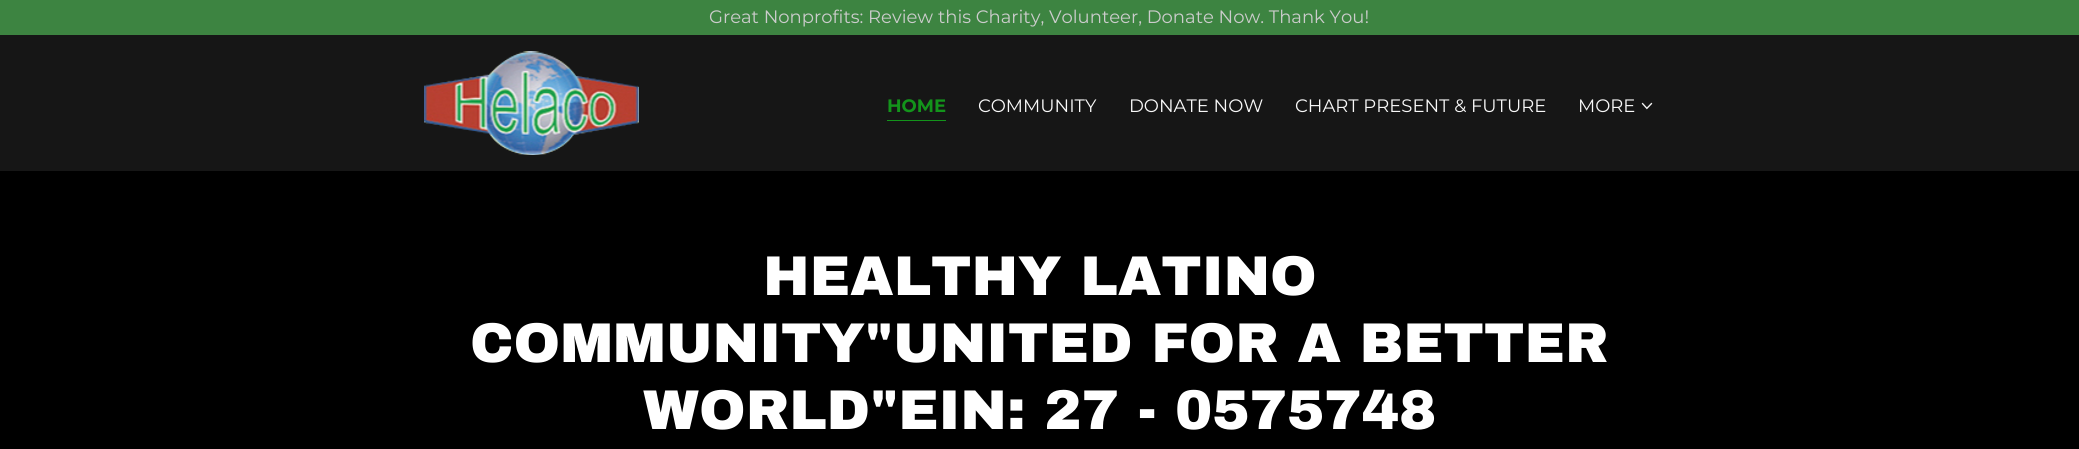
import math
import cairo

surface = cairo.ImageSurface(cairo.FORMAT_RGB24, 2079, 449)
ctx = cairo.Context(surface)
options = cairo.FontOptions()
options.set_hint_metrics(cairo.HINT_METRICS_OFF)
options.set_hint_style(cairo.HINT_STYLE_NONE)
ctx.set_font_options(options)
ctx.set_miter_limit(4)


def picture(path, x, y, w, h):
    ctx.save()
    ctx.set_source_surface(cairo.ImageSurface.create_from_png(path), x, y)
    ctx.rectangle(x, y, w, h)
    ctx.fill()
    ctx.restore()


ctx.set_source_rgb(0.086, 0.086, 0.086)
ctx.paint()
ctx.set_source_rgb(0.239, 0.518, 0.255)
ctx.rectangle(0, 0, 2079, 35)
ctx.fill()
ctx.select_font_face("Montserrat")
ctx.set_font_size(18)
ctx.set_source_rgb(0.8, 0.8, 0.8)
ctx.move_to(709, 23)
ctx.show_text("Great Nonprofits: Review this Charity, Volunteer, Donate Now. Thank You!")
picture("img1.png", 424, 51, 215, 104)
ctx.set_source_rgb(0.075, 0.58, 0.106)
ctx.rectangle(887, 120, 59, 1)
ctx.fill()
ctx.select_font_face("Montserrat", cairo.FONT_SLANT_NORMAL, cairo.FONT_WEIGHT_BOLD)
ctx.move_to(887, 112)
ctx.show_text("HOME")
ctx.select_font_face("Montserrat")
ctx.set_source_rgb(0.969, 0.969, 0.969)
ctx.move_to(978, 112)
ctx.show_text("COMMUNITY")
ctx.move_to(1129, 112)
ctx.show_text("DONATE NOW")
ctx.move_to(1295, 112)
ctx.show_text("CHART PRESENT & FUTURE")
ctx.move_to(1578, 112)
ctx.show_text("MORE")
picture("img2.png", 1641, 102, 12, 8)
ctx.set_source_rgb(0, 0, 0)
ctx.rectangle(0, 171, 2079, 278)
ctx.fill()
ctx.select_font_face("Archivo Black Black")
ctx.set_font_size(56)
ctx.set_source_rgb(1, 1, 1)
ctx.move_to(763, 295)
ctx.show_text("HEALTHY LATINO")
ctx.move_to(470, 362)
ctx.show_text("COMMUNITY\"UNITED FOR A BETTER")
ctx.move_to(643, 429)
ctx.show_text("WORLD\"EIN: 27 - 0575748")
surface.write_to_png("page.png")
